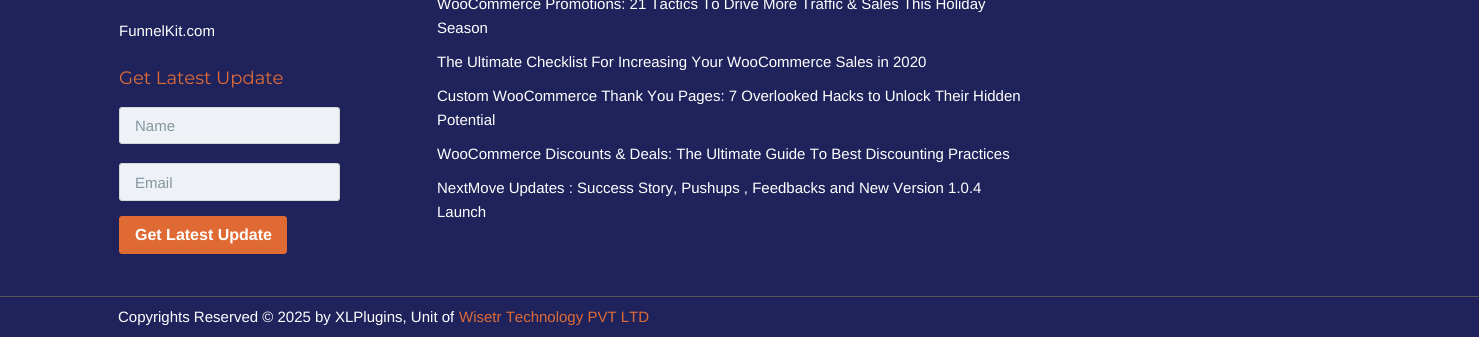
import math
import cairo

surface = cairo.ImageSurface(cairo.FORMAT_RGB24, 1479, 337)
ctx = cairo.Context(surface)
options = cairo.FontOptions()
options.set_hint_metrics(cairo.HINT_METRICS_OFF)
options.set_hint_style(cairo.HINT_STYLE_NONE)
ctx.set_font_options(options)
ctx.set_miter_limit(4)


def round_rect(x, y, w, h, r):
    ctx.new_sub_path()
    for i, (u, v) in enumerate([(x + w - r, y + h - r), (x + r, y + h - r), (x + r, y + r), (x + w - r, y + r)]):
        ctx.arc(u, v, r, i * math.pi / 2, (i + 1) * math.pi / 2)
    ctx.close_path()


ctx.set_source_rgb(0.125, 0.137, 0.357)
ctx.paint()
ctx.select_font_face("Liberation Sans")
ctx.set_font_size(15)
ctx.set_source_rgb(1, 1, 1)
ctx.move_to(119, 36)
ctx.show_text("FunnelKit.com")
ctx.select_font_face("Montserrat")
ctx.set_font_size(18)
ctx.set_source_rgb(0.871, 0.416, 0.216)
ctx.move_to(119, 84)
ctx.show_text("Get Latest Update")
ctx.set_source_rgb(0.933, 0.949, 0.961)
round_rect(119.5, 107.5, 220, 36, 2.5)
ctx.fill_preserve()
ctx.set_source_rgb(0.831, 0.839, 0.839)
ctx.set_line_width(1)
ctx.stroke()
ctx.select_font_face("Liberation Sans")
ctx.set_font_size(15)
ctx.set_source_rgb(0.518, 0.588, 0.627)
ctx.move_to(135, 131)
ctx.show_text("Name")
ctx.set_source_rgb(0.933, 0.949, 0.961)
round_rect(119.5, 163.5, 220, 37, 2.5)
ctx.fill_preserve()
ctx.set_source_rgb(0.831, 0.839, 0.839)
ctx.stroke()
ctx.set_source_rgb(0.518, 0.588, 0.627)
ctx.move_to(135, 188)
ctx.show_text("Email")
ctx.set_source_rgb(0.878, 0.416, 0.204)
round_rect(119, 216, 168, 38, 3)
ctx.fill()
ctx.select_font_face("Liberation Sans", cairo.FONT_SLANT_NORMAL, cairo.FONT_WEIGHT_BOLD)
ctx.set_font_size(16)
ctx.set_source_rgb(1, 1, 1)
ctx.move_to(135, 240)
ctx.show_text("Get Latest Update")
ctx.select_font_face("Liberation Sans")
ctx.set_font_size(15)
ctx.move_to(437, 9)
ctx.show_text("WooCommerce Promotions: 21 Tactics To Drive More Traffic & Sales This Holiday")
ctx.move_to(437, 33)
ctx.show_text("Season")
ctx.move_to(437, 67)
ctx.show_text("The Ultimate Checklist For Increasing Your WooCommerce Sales in 2020")
ctx.move_to(437, 101)
ctx.show_text("Custom WooCommerce Thank You Pages: 7 Overlooked Hacks to Unlock Their Hidden")
ctx.move_to(437, 125)
ctx.show_text("Potential")
ctx.move_to(437, 159)
ctx.show_text("WooCommerce Discounts & Deals: The Ultimate Guide To Best Discounting Practices")
ctx.move_to(437, 193)
ctx.show_text("NextMove Updates : Success Story, Pushups , Feedbacks and New Version 1.0.4")
ctx.move_to(437, 217)
ctx.show_text("Launch")
ctx.set_source_rgb(0.337, 0.337, 0.349)
ctx.rectangle(0, 296, 1479, 1)
ctx.fill()
ctx.set_source_rgb(1, 1, 1)
ctx.move_to(118, 322)
ctx.show_text("Copyrights Reserved © 2025 by XLPlugins, Unit of")
ctx.set_source_rgb(0.871, 0.416, 0.216)
ctx.move_to(459, 322)
ctx.show_text("Wisetr Technology PVT LTD")
surface.write_to_png("page.png")
